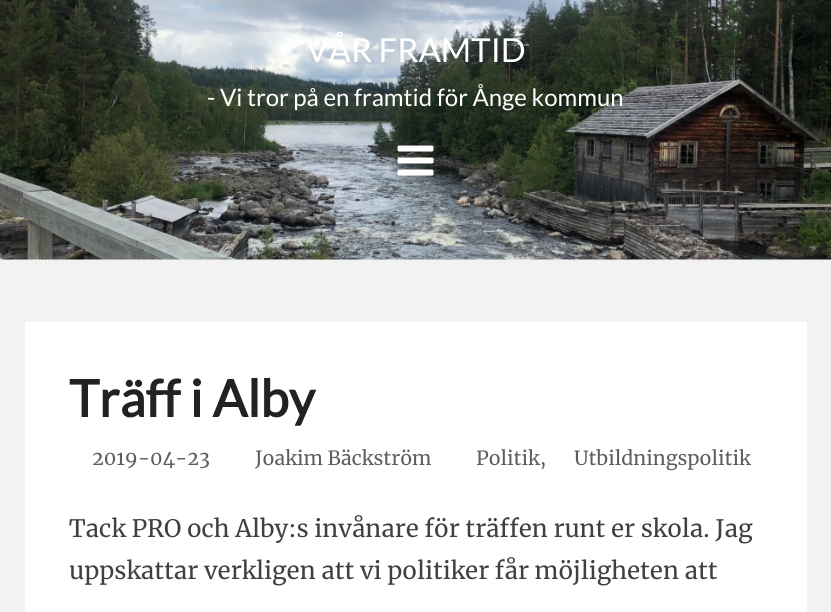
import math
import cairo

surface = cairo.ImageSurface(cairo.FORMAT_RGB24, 831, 612)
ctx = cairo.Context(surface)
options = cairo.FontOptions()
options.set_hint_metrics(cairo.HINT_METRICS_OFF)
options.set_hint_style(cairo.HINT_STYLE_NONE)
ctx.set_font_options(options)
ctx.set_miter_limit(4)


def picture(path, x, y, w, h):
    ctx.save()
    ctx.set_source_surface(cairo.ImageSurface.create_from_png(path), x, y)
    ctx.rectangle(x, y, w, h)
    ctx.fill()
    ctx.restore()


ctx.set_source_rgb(0.949, 0.949, 0.949)
ctx.paint()
picture("img1.png", 0, 0, 831, 260)
ctx.select_font_face("Lato")
ctx.set_font_size(33)
ctx.set_source_rgb(1, 1, 1)
ctx.move_to(306, 62)
ctx.show_text("VÅR FRAMTID")
ctx.set_font_size(24)
ctx.move_to(207, 106)
ctx.show_text("- Vi tror på en framtid för Ånge kommun")
picture("img2.png", 397, 145, 37, 31)
ctx.rectangle(25, 322, 782, 290)
ctx.fill()
ctx.select_font_face("Lato", cairo.FONT_SLANT_NORMAL, cairo.FONT_WEIGHT_BOLD)
ctx.set_font_size(51)
ctx.set_source_rgb(0.133, 0.133, 0.133)
ctx.move_to(69, 417)
ctx.show_text("Träff i Alby")
ctx.select_font_face("Merriweather")
ctx.set_font_size(19.5)
ctx.set_source_rgb(0.369, 0.369, 0.369)
ctx.move_to(92, 465)
ctx.show_text("2019-04-23")
ctx.move_to(255, 465)
ctx.show_text("Joakim Bäckström")
ctx.move_to(476, 465)
ctx.show_text("Politik,")
ctx.move_to(574, 465)
ctx.show_text("Utbildningspolitik")
ctx.set_font_size(24)
ctx.set_source_rgb(0.251, 0.251, 0.251)
ctx.move_to(69, 537)
ctx.show_text("Tack PRO och Alby:s invånare för träffen runt er skola. Jag")
ctx.move_to(69, 579)
ctx.show_text("uppskattar verkligen att vi politiker får möjligheten att")
surface.write_to_png("page.png")
